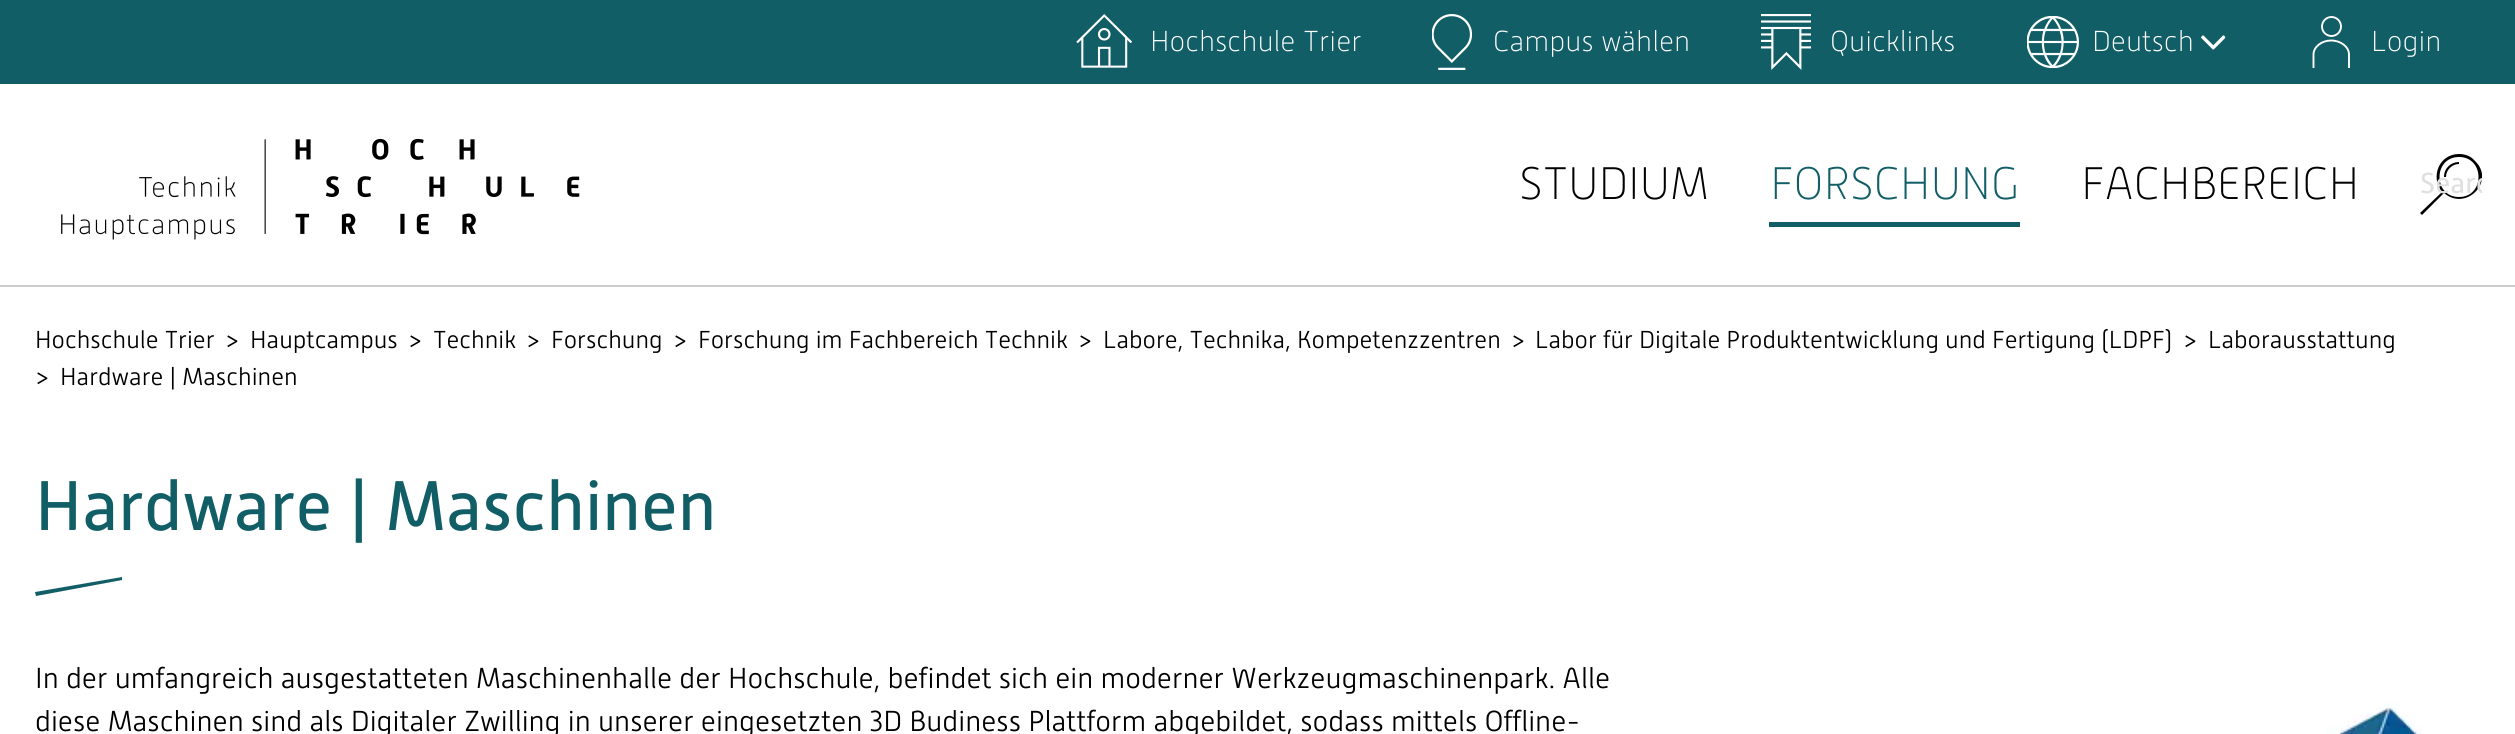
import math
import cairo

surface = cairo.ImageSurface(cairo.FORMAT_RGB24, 2515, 734)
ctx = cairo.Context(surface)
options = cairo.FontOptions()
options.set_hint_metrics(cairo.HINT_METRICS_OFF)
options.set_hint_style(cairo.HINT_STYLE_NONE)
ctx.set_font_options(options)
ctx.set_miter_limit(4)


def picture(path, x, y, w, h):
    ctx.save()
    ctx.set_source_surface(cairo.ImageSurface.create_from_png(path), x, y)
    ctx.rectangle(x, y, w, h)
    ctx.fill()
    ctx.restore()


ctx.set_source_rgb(1, 1, 1)
ctx.paint()
ctx.set_source_rgb(0.8, 0.8, 0.8)
ctx.rectangle(0, 285, 2515, 2)
ctx.fill()
ctx.set_source_rgb(0.067, 0.369, 0.404)
ctx.rectangle(0, 0, 2515, 84)
ctx.fill()
picture("img1.png", 1076, 14, 56, 54)
ctx.select_font_face("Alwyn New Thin")
ctx.set_font_size(28.88)
ctx.set_source_rgb(1, 1, 1)
ctx.move_to(1150, 51)
ctx.show_text("Hochschule Trier")
picture("img2.png", 1432, 14, 40, 56)
ctx.move_to(1493, 51)
ctx.show_text("Campus wählen")
picture("img3.png", 1761, 14, 50, 56)
ctx.move_to(1830, 51)
ctx.show_text("Quicklinks")
picture("img4.png", 2027, 16, 52, 52)
ctx.move_to(2092, 51)
ctx.show_text("Deutsch")
picture("img5.png", 2201, 35, 25, 15)
ctx.arc(2331.5, 26.5, 9.5, 0, 2 * math.pi)
ctx.set_line_width(1.9)
ctx.stroke()
ctx.save()
ctx.rectangle(2305, 16, 52, 52)
ctx.clip()
ctx.new_path()
ctx.move_to(2331, 40.5)
ctx.curve_to(2321.5, 40.5, 2313.5, 47, 2313.5, 54.5)
ctx.line_to(2313.5, 71.5)
ctx.line_to(2349, 71.5)
ctx.line_to(2349, 54.5)
ctx.curve_to(2349, 47, 2341, 40.5, 2331, 40.5)
ctx.close_path()
ctx.stroke()
ctx.restore()
ctx.move_to(2371, 51)
ctx.show_text("Login")
picture("img6.png", 61, 138, 519, 102)
ctx.set_font_size(45.5)
ctx.set_source_rgb(0, 0, 0)
ctx.move_to(1519, 199)
ctx.show_text("STUDIUM")
ctx.set_source_rgb(0.067, 0.369, 0.404)
ctx.move_to(1770, 199)
ctx.show_text("FORSCHUNG")
ctx.rectangle(1769, 222, 251, 5)
ctx.fill()
ctx.set_source_rgb(0, 0, 0)
ctx.move_to(2081, 199)
ctx.show_text("FACHBEREICH")
ctx.save()
ctx.rectangle(2420, 154, 62, 61)
ctx.clip()
ctx.new_path()
ctx.move_to(2459, 154)
ctx.curve_to(2439, 154, 2430, 177, 2442, 192)
ctx.line_to(2420, 213)
ctx.line_to(2422, 215)
ctx.line_to(2444, 193)
ctx.curve_to(2466, 212, 2496, 181, 2475, 161)
ctx.curve_to(2471, 156, 2465, 154, 2459, 154)
ctx.close_path()
ctx.move_to(2459, 197)
ctx.curve_to(2433, 197, 2433, 157, 2459, 157)
ctx.curve_to(2485, 157, 2485, 197, 2459, 197)
ctx.close_path()
ctx.move_to(2444, 177)
ctx.line_to(2446, 177)
ctx.curve_to(2446, 170, 2452, 164, 2459, 164)
ctx.line_to(2459, 162)
ctx.curve_to(2451, 162, 2444, 168, 2444, 177)
ctx.close_path()
ctx.fill()
ctx.select_font_face("Alwyn New")
ctx.set_font_size(28.88)
ctx.set_source_rgb(0.878, 0.878, 0.878)
ctx.move_to(2420, 193)
ctx.show_text("Searc")
ctx.restore()
ctx.select_font_face("Alwyn New Light")
ctx.set_font_size(24.5)
ctx.move_to(35, 348)
ctx.show_text("Hochschule Trier")
ctx.move_to(225, 348)
ctx.show_text(">")
ctx.move_to(250, 348)
ctx.show_text("Hauptcampus")
ctx.move_to(408, 348)
ctx.show_text(">")
ctx.move_to(433, 348)
ctx.show_text("Technik")
ctx.move_to(526, 348)
ctx.show_text(">")
ctx.move_to(551, 348)
ctx.show_text("Forschung")
ctx.move_to(673, 348)
ctx.show_text(">")
ctx.move_to(698, 348)
ctx.show_text("Forschung im Fachbereich Technik")
ctx.move_to(1078, 348)
ctx.show_text(">")
ctx.move_to(1103, 348)
ctx.show_text("Labore, Technika, Kompetenzzentren")
ctx.move_to(1511, 348)
ctx.show_text(">")
ctx.move_to(1535, 348)
ctx.show_text("Labor für Digitale Produktentwicklung und Fertigung (LDPF)")
ctx.move_to(2183, 348)
ctx.show_text(">")
ctx.move_to(2208, 348)
ctx.show_text("Laborausstattung")
ctx.move_to(35, 385)
ctx.show_text(">")
ctx.move_to(60, 385)
ctx.show_text("Hardware | Maschinen")
ctx.select_font_face("Alwyn New")
ctx.set_font_size(70)
ctx.set_source_rgb(0.067, 0.369, 0.404)
ctx.move_to(35, 530)
ctx.show_text("Hardware | Maschinen")
ctx.new_path()
ctx.move_to(35, 592)
ctx.line_to(122, 577)
ctx.line_to(122, 580)
ctx.line_to(36, 596)
ctx.close_path()
ctx.fill()
ctx.select_font_face("Alwyn New Light")
ctx.set_font_size(28.88)
ctx.set_source_rgb(0, 0, 0)
ctx.move_to(35, 688)
ctx.show_text("In der umfangreich ausgestatteten Maschinenhalle der Hochschule, befindet sich ein moderner Werkzeugmaschinenpark. Alle")
ctx.move_to(35, 731)
ctx.show_text("diese Maschinen sind als Digitaler Zwilling in unserer eingesetzten 3D Budiness Plattform abgebildet, sodass mittels Offline-")
picture("img7.png", 2326, 700, 97, 34)
surface.write_to_png("page.png")
